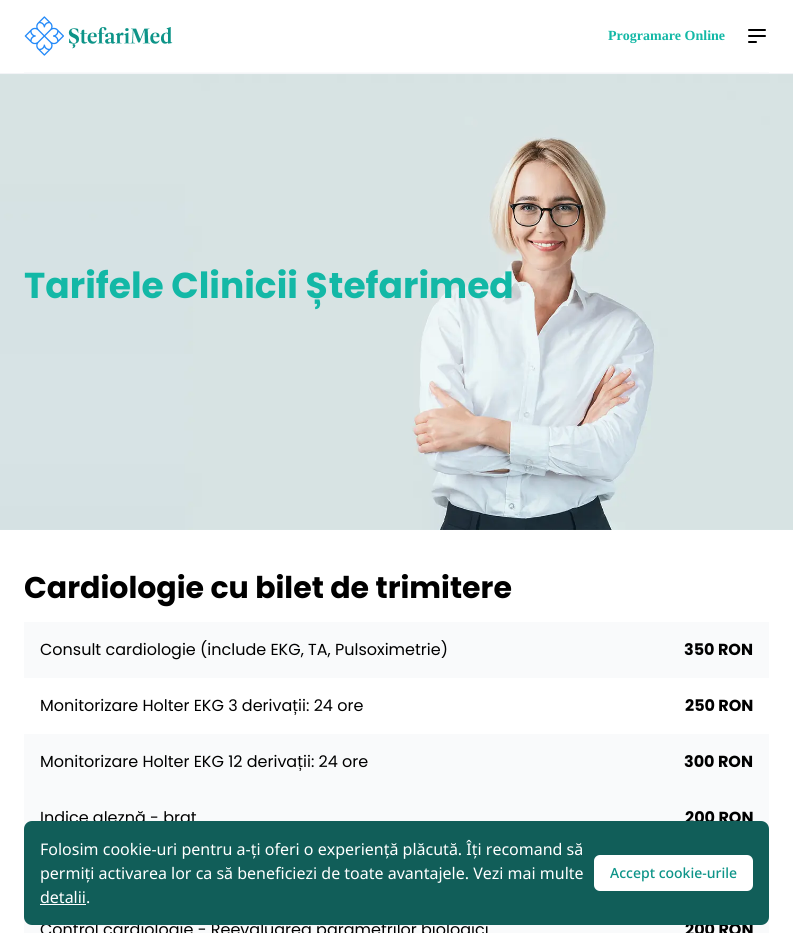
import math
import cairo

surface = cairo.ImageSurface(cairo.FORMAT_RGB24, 793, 933)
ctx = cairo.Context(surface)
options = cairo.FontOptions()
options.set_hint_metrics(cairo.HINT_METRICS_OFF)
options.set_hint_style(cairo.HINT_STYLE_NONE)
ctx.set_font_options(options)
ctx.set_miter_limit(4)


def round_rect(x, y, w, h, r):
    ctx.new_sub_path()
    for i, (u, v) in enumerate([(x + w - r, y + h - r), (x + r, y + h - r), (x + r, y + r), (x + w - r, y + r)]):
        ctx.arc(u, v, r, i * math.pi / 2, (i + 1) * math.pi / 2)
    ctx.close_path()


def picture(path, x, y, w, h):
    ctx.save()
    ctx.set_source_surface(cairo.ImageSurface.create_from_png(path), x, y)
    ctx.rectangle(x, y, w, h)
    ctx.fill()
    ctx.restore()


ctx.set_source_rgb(1, 1, 1)
ctx.paint()
ctx.set_source_rgb(0.953, 0.957, 0.965)
ctx.rectangle(0, 73, 793, 1)
ctx.fill()
ctx.set_source_rgb(0.976, 0.98, 0.984)
ctx.rectangle(24, 72, 745, 1)
ctx.fill()
picture("img1.png", 24, 16, 149, 40)
ctx.select_font_face("Liberation Serif", cairo.FONT_SLANT_NORMAL, cairo.FONT_WEIGHT_BOLD)
ctx.set_font_size(14)
ctx.set_source_rgb(0.078, 0.722, 0.651)
ctx.move_to(608, 40)
ctx.show_text("Programare Online")
ctx.new_path()
ctx.move_to(749, 30)
ctx.line_to(765, 30)
ctx.move_to(749, 36)
ctx.line_to(765, 36)
ctx.move_to(749, 42)
ctx.line_to(756, 42)
ctx.set_source_rgb(0, 0, 0)
ctx.set_line_cap(cairo.LINE_CAP_ROUND)
ctx.set_line_join(cairo.LINE_JOIN_ROUND)
ctx.stroke()
picture("img2.png", 0, 74, 793, 456)
ctx.select_font_face("Poppins", cairo.FONT_SLANT_NORMAL, cairo.FONT_WEIGHT_BOLD)
ctx.set_font_size(36)
ctx.set_source_rgb(0.078, 0.722, 0.651)
ctx.move_to(24, 298)
ctx.show_text("Tarifele Clinicii Ștefarimed")
ctx.set_font_size(30)
ctx.set_source_rgb(0, 0, 0)
ctx.move_to(24, 598)
ctx.show_text("Cardiologie cu bilet de trimitere")
ctx.set_source_rgb(0.976, 0.98, 0.984)
ctx.rectangle(24, 622, 745, 56)
ctx.fill()
ctx.select_font_face("Poppins")
ctx.set_font_size(16)
ctx.set_source_rgb(0, 0, 0)
ctx.move_to(40, 655)
ctx.show_text("Consult cardiologie (include EKG, TA, Pulsoximetrie)")
ctx.select_font_face("Poppins", cairo.FONT_SLANT_NORMAL, cairo.FONT_WEIGHT_BOLD)
ctx.move_to(684, 655)
ctx.show_text("350 RON")
ctx.select_font_face("Poppins")
ctx.move_to(40, 711)
ctx.show_text("Monitorizare Holter EKG 3 derivații: 24 ore")
ctx.select_font_face("Poppins", cairo.FONT_SLANT_NORMAL, cairo.FONT_WEIGHT_BOLD)
ctx.move_to(685, 711)
ctx.show_text("250 RON")
ctx.set_source_rgb(0.976, 0.98, 0.984)
ctx.rectangle(24, 734, 745, 95)
ctx.fill()
ctx.select_font_face("Poppins")
ctx.set_source_rgb(0, 0, 0)
ctx.move_to(40, 767)
ctx.show_text("Monitorizare Holter EKG 12 derivații: 24 ore")
ctx.select_font_face("Poppins", cairo.FONT_SLANT_NORMAL, cairo.FONT_WEIGHT_BOLD)
ctx.move_to(684, 767)
ctx.show_text("300 RON")
ctx.select_font_face("Poppins")
ctx.move_to(40, 823)
ctx.show_text("Indice gleznă - braț")
ctx.select_font_face("Poppins", cairo.FONT_SLANT_NORMAL, cairo.FONT_WEIGHT_BOLD)
ctx.move_to(685, 823)
ctx.show_text("200 RON")
ctx.set_source_rgb(0.976, 0.98, 0.984)
ctx.rectangle(24, 917, 745, 16)
ctx.fill()
ctx.select_font_face("Poppins")
ctx.set_source_rgb(0, 0, 0)
ctx.move_to(40, 935)
ctx.show_text("Control cardiologie - Reevaluarea parametrilor biologici")
ctx.select_font_face("Poppins", cairo.FONT_SLANT_NORMAL, cairo.FONT_WEIGHT_BOLD)
ctx.move_to(685, 935)
ctx.show_text("200 RON")
ctx.set_source_rgb(0.067, 0.369, 0.349)
round_rect(24, 821, 745, 104, 8)
ctx.fill()
ctx.select_font_face("Noto Sans")
ctx.set_source_rgb(1, 1, 1)
ctx.move_to(40, 855)
ctx.show_text("Folosim cookie-uri pentru a-ți oferi o experiență plăcută. Îți recomand să")
ctx.move_to(40, 879)
ctx.show_text("permiți activarea lor ca să beneficiezi de toate avantajele. Vezi mai multe")
ctx.move_to(40, 903)
ctx.show_text("detalii.")
ctx.rectangle(40, 904, 46, 1)
ctx.fill()
round_rect(594, 855, 159, 36, 6)
ctx.fill()
ctx.select_font_face("Noto Sans Medium")
ctx.set_font_size(14)
ctx.set_source_rgb(0.051, 0.58, 0.533)
ctx.move_to(610, 878)
ctx.show_text("Accept cookie-urile")
surface.write_to_png("page.png")
